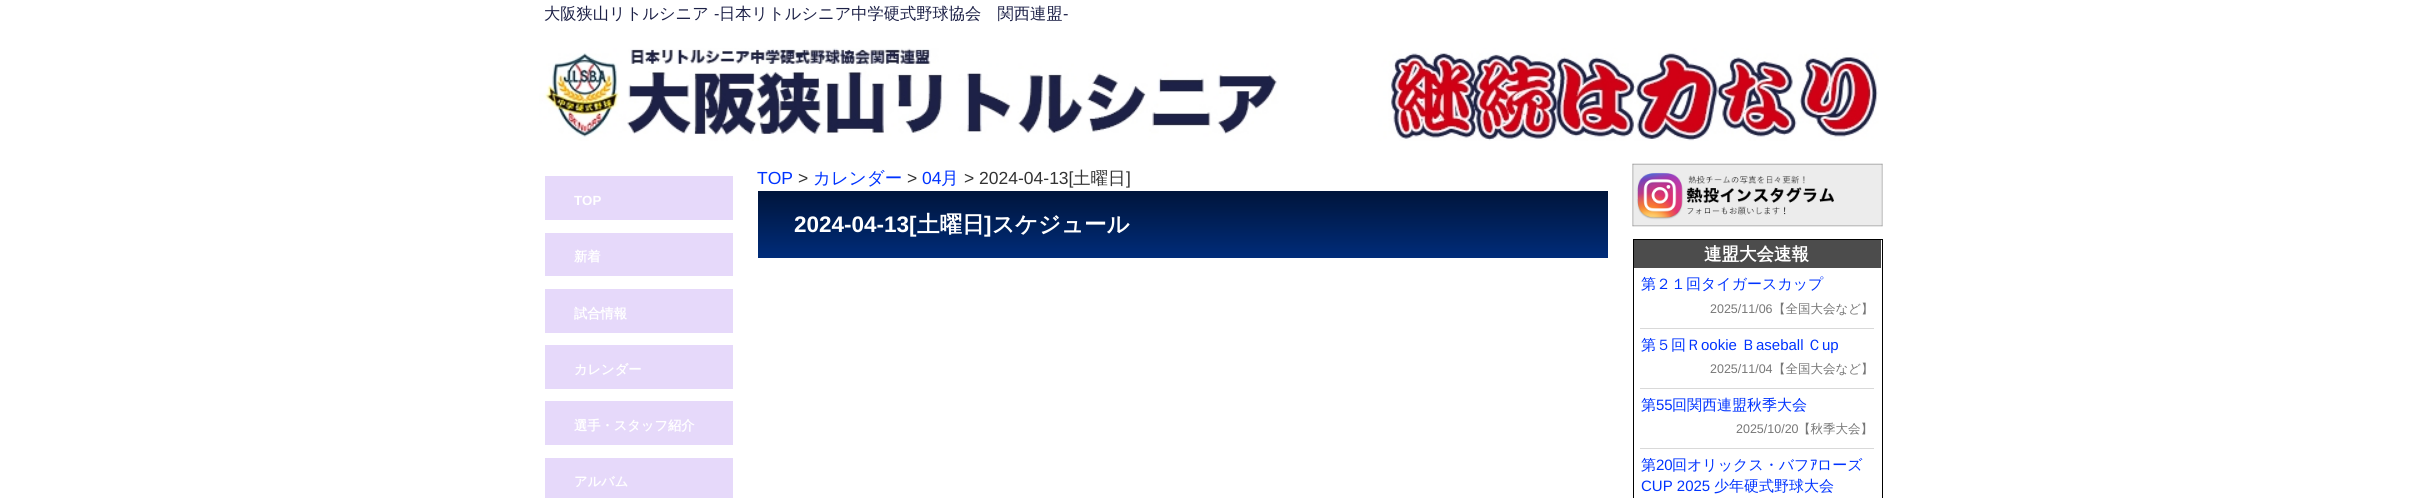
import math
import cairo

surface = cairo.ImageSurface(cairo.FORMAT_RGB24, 2432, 498)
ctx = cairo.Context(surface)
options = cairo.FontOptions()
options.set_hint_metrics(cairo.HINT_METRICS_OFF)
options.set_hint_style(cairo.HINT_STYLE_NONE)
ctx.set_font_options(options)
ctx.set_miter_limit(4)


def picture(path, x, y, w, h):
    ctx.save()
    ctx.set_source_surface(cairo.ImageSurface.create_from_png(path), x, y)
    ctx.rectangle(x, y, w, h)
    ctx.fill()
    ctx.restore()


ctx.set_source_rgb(1, 1, 1)
ctx.paint()
ctx.select_font_face("WenQuanYi Zen Hei Medium")
ctx.set_font_size(16.25)
ctx.set_source_rgb(0.114, 0.129, 0.278)
ctx.move_to(544, 19)
ctx.show_text("大阪狭山リトルシニア")
ctx.select_font_face("Liberation Sans")
ctx.move_to(714, 19)
ctx.show_text("-")
ctx.select_font_face("WenQuanYi Zen Hei Medium")
ctx.move_to(719, 19)
ctx.show_text("日本リトルシニア中学硬式野球協会　関西連盟")
ctx.select_font_face("Liberation Sans")
ctx.move_to(1063, 19)
ctx.show_text("-")
picture("img1.png", 539, 48, 1356, 93)
ctx.set_source_rgb(0.902, 0.851, 0.98)
ctx.rectangle(545, 176, 188, 44)
ctx.fill()
ctx.select_font_face("Liberation Sans", cairo.FONT_SLANT_NORMAL, cairo.FONT_WEIGHT_BOLD)
ctx.set_font_size(13.25)
ctx.set_source_rgb(1, 1, 1)
ctx.move_to(574, 205)
ctx.show_text("TOP")
ctx.set_source_rgb(0.902, 0.851, 0.98)
ctx.rectangle(545, 233, 188, 43)
ctx.fill()
ctx.select_font_face("WenQuanYi Zen Hei", cairo.FONT_SLANT_NORMAL, cairo.FONT_WEIGHT_BOLD)
ctx.set_source_rgb(1, 1, 1)
ctx.move_to(574, 261)
ctx.show_text("新着")
ctx.set_source_rgb(0.902, 0.851, 0.98)
ctx.rectangle(545, 289, 188, 44)
ctx.fill()
ctx.set_source_rgb(1, 1, 1)
ctx.move_to(574, 318)
ctx.show_text("試合情報")
ctx.set_source_rgb(0.902, 0.851, 0.98)
ctx.rectangle(545, 345, 188, 44)
ctx.fill()
ctx.set_source_rgb(1, 1, 1)
ctx.move_to(574, 374)
ctx.show_text("カレンダー")
ctx.set_source_rgb(0.902, 0.851, 0.98)
ctx.rectangle(545, 401, 188, 44)
ctx.fill()
ctx.set_source_rgb(1, 1, 1)
ctx.move_to(574, 430)
ctx.show_text("選手・スタッフ紹介")
ctx.set_source_rgb(0.902, 0.851, 0.98)
ctx.rectangle(545, 458, 188, 40)
ctx.fill()
ctx.set_source_rgb(1, 1, 1)
ctx.move_to(574, 486)
ctx.show_text("アルバム")
ctx.select_font_face("Liberation Sans")
ctx.set_font_size(17.5)
ctx.set_source_rgb(0, 0.2, 1)
ctx.move_to(757, 184)
ctx.show_text("TOP")
ctx.set_source_rgb(0.2, 0.2, 0.2)
ctx.move_to(798, 184)
ctx.show_text(">")
ctx.select_font_face("WenQuanYi Zen Hei Medium")
ctx.set_source_rgb(0, 0.2, 1)
ctx.move_to(813, 184)
ctx.show_text("カレンダー")
ctx.select_font_face("Liberation Sans")
ctx.set_source_rgb(0.2, 0.2, 0.2)
ctx.move_to(907, 184)
ctx.show_text(">")
ctx.set_source_rgb(0, 0.2, 1)
ctx.move_to(922, 184)
ctx.show_text("04")
ctx.select_font_face("WenQuanYi Zen Hei Medium")
ctx.move_to(941, 184)
ctx.show_text("月")
ctx.select_font_face("Liberation Sans")
ctx.set_source_rgb(0.2, 0.2, 0.2)
ctx.move_to(964, 184)
ctx.show_text("> 2024-04-13[")
ctx.select_font_face("WenQuanYi Zen Hei Medium")
ctx.move_to(1073, 184)
ctx.show_text("土曜日")
ctx.select_font_face("Liberation Sans")
ctx.move_to(1126, 184)
ctx.show_text("]")
gradient = cairo.LinearGradient(758, 191, 758, 258)
gradient.add_color_stop_rgba(0, 0, 0.082, 0.231, 1)
gradient.add_color_stop_rgba(1, 0, 0.173, 0.478, 1)
ctx.set_source(gradient)
ctx.rectangle(758, 191, 850, 67)
ctx.fill()
ctx.select_font_face("Liberation Sans", cairo.FONT_SLANT_NORMAL, cairo.FONT_WEIGHT_BOLD)
ctx.set_font_size(22.5)
ctx.set_source_rgb(1, 1, 1)
ctx.move_to(794, 232)
ctx.show_text("2024-04-13[")
ctx.select_font_face("WenQuanYi Zen Hei", cairo.FONT_SLANT_NORMAL, cairo.FONT_WEIGHT_BOLD)
ctx.move_to(917, 232)
ctx.show_text("土曜日")
ctx.select_font_face("Liberation Sans", cairo.FONT_SLANT_NORMAL, cairo.FONT_WEIGHT_BOLD)
ctx.move_to(984, 232)
ctx.show_text("]")
ctx.select_font_face("WenQuanYi Zen Hei", cairo.FONT_SLANT_NORMAL, cairo.FONT_WEIGHT_BOLD)
ctx.move_to(992, 232)
ctx.show_text("スケジュール")
picture("img2.png", 1632, 163, 251, 64)
ctx.rectangle(1633.5, 239.5, 249, 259)
ctx.set_source_rgb(0, 0, 0)
ctx.set_line_width(1)
ctx.stroke()
ctx.set_source_rgb(0.298, 0.298, 0.298)
ctx.rectangle(1634, 240, 247, 28)
ctx.fill()
ctx.set_font_size(17.5)
ctx.set_source_rgb(1, 1, 1)
ctx.move_to(1704, 260)
ctx.show_text("連盟大会速報")
ctx.set_source_rgb(0.851, 0.851, 0.851)
ctx.rectangle(1640, 328, 234, 1)
ctx.fill()
ctx.select_font_face("WenQuanYi Zen Hei Medium")
ctx.set_font_size(15)
ctx.set_source_rgb(0, 0.2, 1)
ctx.move_to(1641, 289)
ctx.show_text("第２１回タイガースカップ")
ctx.select_font_face("Liberation Sans")
ctx.set_font_size(12.5)
ctx.set_source_rgb(0.467, 0.467, 0.467)
ctx.move_to(1710, 313)
ctx.show_text("2025/11/06")
ctx.select_font_face("WenQuanYi Zen Hei Medium")
ctx.move_to(1773, 313)
ctx.show_text("【全国大会など】")
ctx.set_source_rgb(0.851, 0.851, 0.851)
ctx.rectangle(1640, 388, 234, 1)
ctx.fill()
ctx.set_font_size(15)
ctx.set_source_rgb(0, 0.2, 1)
ctx.move_to(1641, 350)
ctx.show_text("第５回Ｒ")
ctx.select_font_face("Liberation Sans")
ctx.move_to(1701, 350)
ctx.show_text("ookie")
ctx.select_font_face("WenQuanYi Zen Hei Medium")
ctx.move_to(1741, 350)
ctx.show_text("Ｂ")
ctx.select_font_face("Liberation Sans")
ctx.move_to(1756, 350)
ctx.show_text("aseball")
ctx.select_font_face("WenQuanYi Zen Hei Medium")
ctx.move_to(1807, 350)
ctx.show_text("Ｃ")
ctx.select_font_face("Liberation Sans")
ctx.move_to(1822, 350)
ctx.show_text("up")
ctx.set_font_size(12.5)
ctx.set_source_rgb(0.467, 0.467, 0.467)
ctx.move_to(1710, 373)
ctx.show_text("2025/11/04")
ctx.select_font_face("WenQuanYi Zen Hei Medium")
ctx.move_to(1773, 373)
ctx.show_text("【全国大会など】")
ctx.set_source_rgb(0.851, 0.851, 0.851)
ctx.rectangle(1640, 448, 234, 1)
ctx.fill()
ctx.set_font_size(15)
ctx.set_source_rgb(0, 0.2, 1)
ctx.move_to(1641, 410)
ctx.show_text("第")
ctx.select_font_face("Liberation Sans")
ctx.move_to(1656, 410)
ctx.show_text("55")
ctx.select_font_face("WenQuanYi Zen Hei Medium")
ctx.move_to(1672, 410)
ctx.show_text("回関西連盟秋季大会")
ctx.select_font_face("Liberation Sans")
ctx.set_font_size(12.5)
ctx.set_source_rgb(0.467, 0.467, 0.467)
ctx.move_to(1736, 433)
ctx.show_text("2025/10/20")
ctx.select_font_face("WenQuanYi Zen Hei Medium")
ctx.move_to(1798, 433)
ctx.show_text("【秋季大会】")
ctx.set_font_size(15)
ctx.set_source_rgb(0, 0.2, 1)
ctx.move_to(1641, 470)
ctx.show_text("第")
ctx.select_font_face("Liberation Sans")
ctx.move_to(1656, 470)
ctx.show_text("20")
ctx.select_font_face("WenQuanYi Zen Hei Medium")
ctx.move_to(1672, 470)
ctx.show_text("回オリックス・バフ")
ctx.select_font_face("IPAGothic")
ctx.move_to(1810, 470)
ctx.show_text("ｱ")
ctx.select_font_face("WenQuanYi Zen Hei Medium")
ctx.move_to(1817, 470)
ctx.show_text("ローズ")
ctx.select_font_face("Liberation Sans")
ctx.move_to(1641, 491)
ctx.show_text("CUP 2025")
ctx.select_font_face("WenQuanYi Zen Hei Medium")
ctx.move_to(1714, 491)
ctx.show_text("少年硬式野球大会")
surface.write_to_png("page.png")
